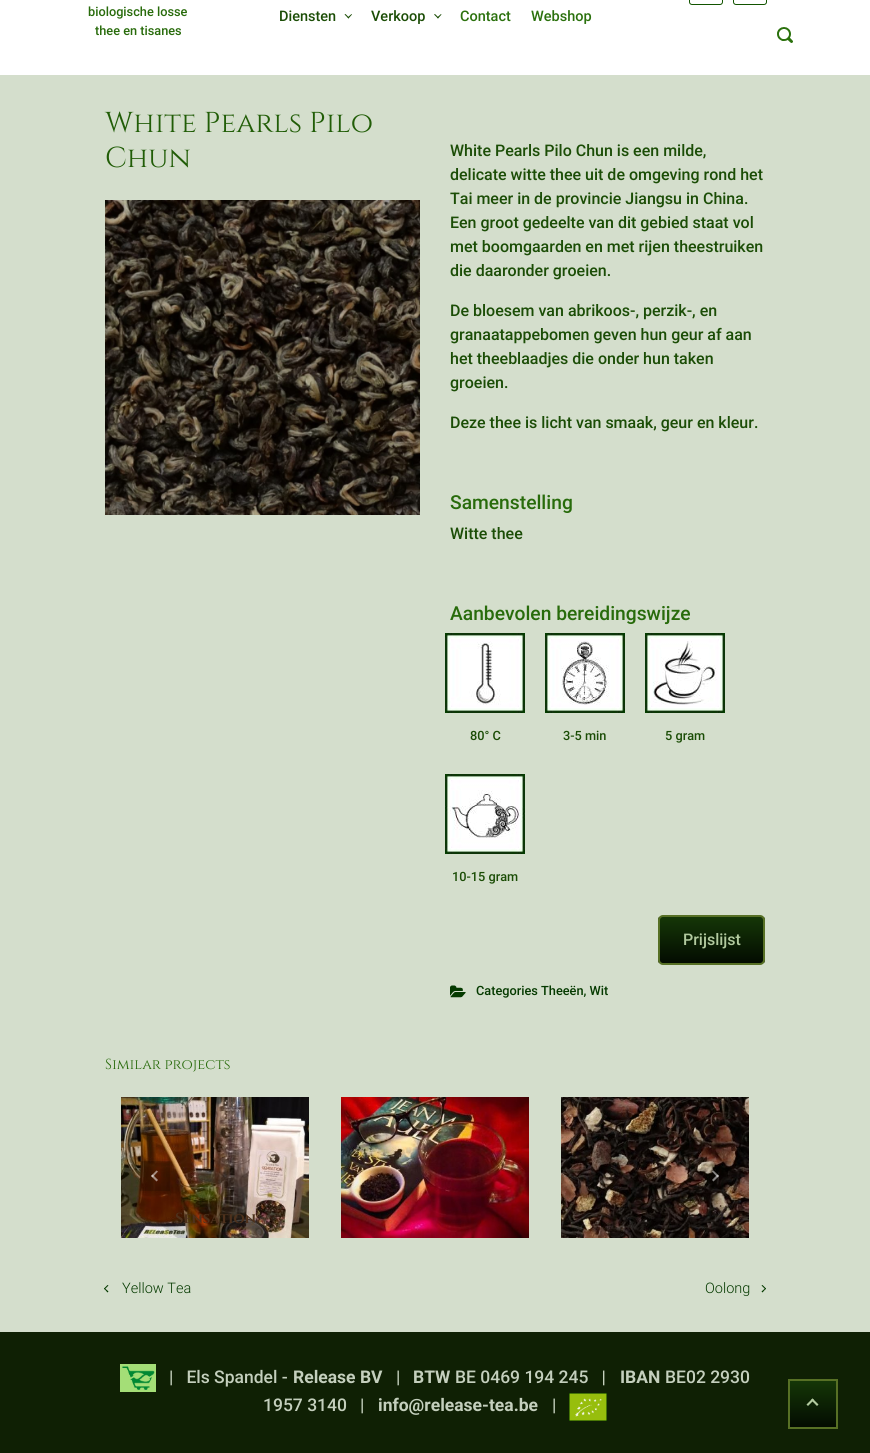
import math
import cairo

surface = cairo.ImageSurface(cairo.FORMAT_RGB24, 870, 1453)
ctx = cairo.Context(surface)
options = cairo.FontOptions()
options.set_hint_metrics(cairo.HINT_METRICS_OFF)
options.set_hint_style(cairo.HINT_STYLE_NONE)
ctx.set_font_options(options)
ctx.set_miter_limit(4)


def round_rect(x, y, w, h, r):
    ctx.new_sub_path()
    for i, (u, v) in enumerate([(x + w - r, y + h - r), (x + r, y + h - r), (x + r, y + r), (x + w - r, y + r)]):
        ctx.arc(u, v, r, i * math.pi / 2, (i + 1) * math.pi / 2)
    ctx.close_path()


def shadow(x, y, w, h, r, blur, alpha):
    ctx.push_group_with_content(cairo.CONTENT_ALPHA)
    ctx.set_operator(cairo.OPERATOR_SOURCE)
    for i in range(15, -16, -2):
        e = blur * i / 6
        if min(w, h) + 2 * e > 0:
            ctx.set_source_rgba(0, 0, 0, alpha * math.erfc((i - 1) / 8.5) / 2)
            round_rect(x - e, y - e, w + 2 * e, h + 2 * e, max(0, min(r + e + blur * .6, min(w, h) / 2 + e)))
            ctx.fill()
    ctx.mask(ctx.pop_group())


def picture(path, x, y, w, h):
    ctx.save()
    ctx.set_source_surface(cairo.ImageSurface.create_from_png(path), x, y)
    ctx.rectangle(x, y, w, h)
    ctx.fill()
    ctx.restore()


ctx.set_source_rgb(1, 1, 1)
ctx.paint()
ctx.select_font_face("Roboto Medium")
ctx.set_font_size(12.75)
ctx.set_source_rgb(0.157, 0.42, 0.043)
ctx.move_to(88, 16)
ctx.show_text("biologische losse")
ctx.move_to(95, 35)
ctx.show_text("thee en tisanes")
ctx.set_font_size(14.5)
ctx.set_source_rgb(0.106, 0.302, 0.024)
ctx.move_to(279, 21)
ctx.show_text("Diensten")
ctx.new_path()
ctx.move_to(351.5, 14)
ctx.line_to(352, 14.5)
ctx.line_to(348.5, 18.5)
ctx.line_to(347.5, 17.5)
ctx.close_path()
ctx.fill()
ctx.new_path()
ctx.move_to(345.5, 14)
ctx.line_to(349, 17.5)
ctx.line_to(348.5, 18.5)
ctx.line_to(344.5, 14.5)
ctx.close_path()
ctx.fill()
ctx.move_to(371, 21)
ctx.show_text("Verkoop")
ctx.new_path()
ctx.move_to(441, 14)
ctx.line_to(441.5, 14.5)
ctx.line_to(438, 18.5)
ctx.line_to(437, 17.5)
ctx.close_path()
ctx.fill()
ctx.new_path()
ctx.move_to(435, 14)
ctx.line_to(438.5, 17.5)
ctx.line_to(438, 18.5)
ctx.line_to(434, 14.5)
ctx.close_path()
ctx.fill()
ctx.set_source_rgb(0.169, 0.443, 0.051)
ctx.move_to(460, 21)
ctx.show_text("Contact")
ctx.move_to(531, 21)
ctx.show_text("Webshop")
round_rect(689.5, -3.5, 33, 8, 2.5)
ctx.set_source_rgb(0.071, 0.329, 0)
ctx.set_line_width(1)
ctx.stroke()
round_rect(733.5, -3.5, 33, 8, 2.5)
ctx.stroke()
picture("img1.png", 777, 27, 16, 16)
ctx.set_source_rgb(0.831, 0.871, 0.8)
ctx.rectangle(0, 75, 870, 1257)
ctx.fill()
ctx.select_font_face("Cinzel")
ctx.set_font_size(28.75)
ctx.set_source_rgb(0.129, 0.365, 0.031)
ctx.move_to(105, 132)
ctx.show_text("White Pearls Pilo")
ctx.move_to(105, 167)
ctx.show_text("Chun")
picture("img2.png", 105, 200, 315, 315)
ctx.select_font_face("Roboto Medium")
ctx.set_font_size(16)
ctx.set_source_rgb(0.106, 0.302, 0.024)
ctx.move_to(450, 156)
ctx.show_text("White Pearls Pilo Chun is een milde,")
ctx.move_to(450, 180)
ctx.show_text("delicate witte thee uit de omgeving rond het")
ctx.move_to(450, 204)
ctx.show_text("Tai meer in de provincie Jiangsu in China.")
ctx.move_to(450, 228)
ctx.show_text("Een groot gedeelte van dit gebied staat vol")
ctx.move_to(450, 252)
ctx.show_text("met boomgaarden en met rijen theestruiken")
ctx.move_to(450, 276)
ctx.show_text("die daaronder groeien.")
ctx.move_to(450, 316)
ctx.show_text("De bloesem van abrikoos-, perzik-, en")
ctx.move_to(450, 340)
ctx.show_text("granaatappebomen geven hun geur af aan")
ctx.move_to(450, 364)
ctx.show_text("het theeblaadjes die onder hun taken")
ctx.move_to(450, 388)
ctx.show_text("groeien.")
ctx.move_to(450, 428)
ctx.show_text("Deze thee is licht van smaak, geur en kleur.")
ctx.set_font_size(19.25)
ctx.set_source_rgb(0.157, 0.42, 0.043)
ctx.move_to(450, 509)
ctx.show_text("Samenstelling")
ctx.set_font_size(16)
ctx.set_source_rgb(0.106, 0.302, 0.024)
ctx.move_to(450, 539)
ctx.show_text("Witte thee")
ctx.set_font_size(19.25)
ctx.set_source_rgb(0.157, 0.42, 0.043)
ctx.move_to(450, 620)
ctx.show_text("Aanbevolen bereidingswijze")
picture("img3.png", 445, 633, 80, 80)
ctx.set_font_size(12.75)
ctx.set_source_rgb(0.106, 0.302, 0.024)
ctx.move_to(470, 740)
ctx.show_text("80° C")
picture("img4.png", 545, 633, 80, 80)
ctx.move_to(563, 740)
ctx.show_text("3-5 min")
picture("img5.png", 645, 633, 80, 80)
ctx.move_to(665, 740)
ctx.show_text("5 gram")
picture("img6.png", 445, 774, 80, 80)
ctx.move_to(452, 881)
ctx.show_text("10-15 gram")
ctx.save()
round_rect(658, 915, 107, 50, 5)
ctx.clip()
gradient = cairo.LinearGradient(712, 963, 712, 917)
gradient.add_color_stop_rgba(0, 0.012, 0.047, 0.004, 1)
gradient.add_color_stop_rgba(1, 0.082, 0.212, 0.027, 1)
ctx.set_source(gradient)
ctx.rectangle(658, 917, 107, 46)
ctx.fill()
ctx.restore()
round_rect(659, 916, 105, 48, 4)
ctx.set_source_rgb(0.341, 0.439, 0.145)
ctx.set_line_width(2)
ctx.stroke()
ctx.set_font_size(16)
ctx.set_source_rgb(0.698, 0.792, 0.624)
ctx.move_to(683, 945)
ctx.show_text("Prijslijst")
picture("img7.png", 450, 985, 16, 13)
ctx.set_font_size(12.75)
ctx.set_source_rgb(0.02, 0.227, 0)
ctx.move_to(476, 995)
ctx.show_text("Categories Theeën, Wit")
ctx.select_font_face("Cinzel")
ctx.set_font_size(14.5)
ctx.set_source_rgb(0.157, 0.42, 0.043)
ctx.move_to(105, 1069)
ctx.show_text("Similar projects")
picture("img8.png", 121, 1097, 188, 141)
ctx.set_source_rgba(0, 0, 0, 0.15)
ctx.rectangle(140, 1161, 30, 30)
ctx.fill()
ctx.set_source_rgba(1, 1, 1, 0.5)
ctx.new_path()
ctx.move_to(156.5, 1181.5)
ctx.line_to(151, 1176)
ctx.line_to(152.5, 1174.5)
ctx.line_to(158, 1180)
ctx.close_path()
ctx.fill()
ctx.new_path()
ctx.move_to(152.5, 1177.5)
ctx.line_to(151, 1176)
ctx.line_to(156.5, 1170.5)
ctx.line_to(158, 1171.5)
ctx.close_path()
ctx.fill()
picture("img10.png", 561, 1097, 188, 141)
ctx.save()
ctx.set_fill_rule(cairo.FILL_RULE_EVEN_ODD)
ctx.new_path()
ctx.move_to(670, 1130)
ctx.line_to(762, 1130)
ctx.line_to(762, 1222)
ctx.line_to(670, 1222)
ctx.close_path()
ctx.move_to(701, 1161)
ctx.line_to(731, 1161)
ctx.line_to(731, 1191)
ctx.line_to(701, 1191)
ctx.close_path()
ctx.clip()
ctx.set_source_rgb(0, 0, 0)
shadow(701, 1161, 30, 30, 0, 10, 0.15)
ctx.restore()
ctx.set_source_rgba(0, 0, 0, 0.15)
ctx.rectangle(701, 1161, 30, 30)
ctx.fill()
ctx.set_source_rgba(1, 1, 1, 0.5)
ctx.new_path()
ctx.move_to(713.5, 1170.5)
ctx.line_to(719, 1176)
ctx.line_to(717.5, 1177.5)
ctx.line_to(712, 1171.5)
ctx.close_path()
ctx.fill()
ctx.new_path()
ctx.move_to(717.5, 1174.5)
ctx.line_to(719, 1176)
ctx.line_to(713.5, 1181.5)
ctx.line_to(712, 1180)
ctx.close_path()
ctx.fill()
ctx.select_font_face("Cinzel", cairo.FONT_SLANT_NORMAL, cairo.FONT_WEIGHT_BOLD)
ctx.set_source_rgb(0.306, 0.192, 0.11)
ctx.move_to(175, 1223)
ctx.show_text("Sensation")
picture("img9.png", 341, 1097, 188, 141)
ctx.set_source_rgb(0.02, 0.227, 0)
ctx.new_path()
ctx.move_to(108.5, 1291.5)
ctx.line_to(107.5, 1292.5)
ctx.line_to(104, 1288.5)
ctx.line_to(104.5, 1288)
ctx.close_path()
ctx.fill()
ctx.new_path()
ctx.move_to(108.5, 1285.5)
ctx.line_to(104.5, 1289.5)
ctx.line_to(104, 1288.5)
ctx.line_to(107.5, 1285)
ctx.close_path()
ctx.fill()
ctx.select_font_face("Roboto Light")
ctx.move_to(122, 1293)
ctx.show_text("Yellow Tea")
ctx.move_to(705, 1293)
ctx.show_text("Oolong")
ctx.new_path()
ctx.move_to(761.5, 1285.5)
ctx.line_to(762.5, 1285)
ctx.line_to(766, 1288.5)
ctx.line_to(765.5, 1289.5)
ctx.close_path()
ctx.fill()
ctx.new_path()
ctx.move_to(761.5, 1291.5)
ctx.line_to(765.5, 1288)
ctx.line_to(766, 1288.5)
ctx.line_to(762.5, 1292.5)
ctx.close_path()
ctx.fill()
ctx.set_source_rgb(0.059, 0.125, 0.016)
ctx.rectangle(0, 1332, 870, 121)
ctx.fill()
picture("img11.png", 120, 1364, 36, 28)
ctx.select_font_face("Roboto Medium")
ctx.set_font_size(17.5)
ctx.set_source_rgb(0.769, 0.812, 0.741)
ctx.move_to(169, 1383)
ctx.show_text("|   Els Spandel -")
ctx.select_font_face("Roboto", cairo.FONT_SLANT_NORMAL, cairo.FONT_WEIGHT_BOLD)
ctx.move_to(293, 1383)
ctx.show_text("Release BV")
ctx.select_font_face("Roboto Medium")
ctx.move_to(396, 1383)
ctx.show_text("|")
ctx.select_font_face("Roboto", cairo.FONT_SLANT_NORMAL, cairo.FONT_WEIGHT_BOLD)
ctx.move_to(413, 1383)
ctx.show_text("BTW")
ctx.select_font_face("Roboto Medium")
ctx.move_to(455, 1383)
ctx.show_text("BE 0469 194 245   |")
ctx.select_font_face("Roboto", cairo.FONT_SLANT_NORMAL, cairo.FONT_WEIGHT_BOLD)
ctx.move_to(620, 1383)
ctx.show_text("IBAN")
ctx.select_font_face("Roboto Medium")
ctx.move_to(665, 1383)
ctx.show_text("BE02 2930")
ctx.move_to(263, 1411)
ctx.show_text("1957 3140   |")
ctx.select_font_face("Roboto", cairo.FONT_SLANT_NORMAL, cairo.FONT_WEIGHT_BOLD)
ctx.move_to(378, 1411)
ctx.show_text("info@release-tea.be")
ctx.select_font_face("Roboto Medium")
ctx.move_to(552, 1411)
ctx.show_text("|")
picture("img12.png", 569, 1393, 38, 28)
gradient = cairo.LinearGradient(813, 1427, 813, 1381)
gradient.add_color_stop_rgba(0, 0.012, 0.047, 0.004, 1)
gradient.add_color_stop_rgba(1, 0.082, 0.212, 0.027, 1)
ctx.set_source(gradient)
ctx.rectangle(790, 1381, 46, 46)
ctx.fill()
ctx.rectangle(789, 1380, 48, 48)
ctx.set_source_rgb(0.341, 0.439, 0.145)
ctx.stroke()
ctx.set_source_rgb(0.698, 0.792, 0.624)
ctx.new_path()
ctx.move_to(806.5, 1404.5)
ctx.line_to(812.5, 1398.5)
ctx.line_to(814, 1400)
ctx.line_to(808, 1406)
ctx.close_path()
ctx.fill()
ctx.new_path()
ctx.move_to(811, 1400)
ctx.line_to(812.5, 1398.5)
ctx.line_to(818.5, 1404.5)
ctx.line_to(817, 1406)
ctx.close_path()
ctx.fill()
surface.write_to_png("page.png")
